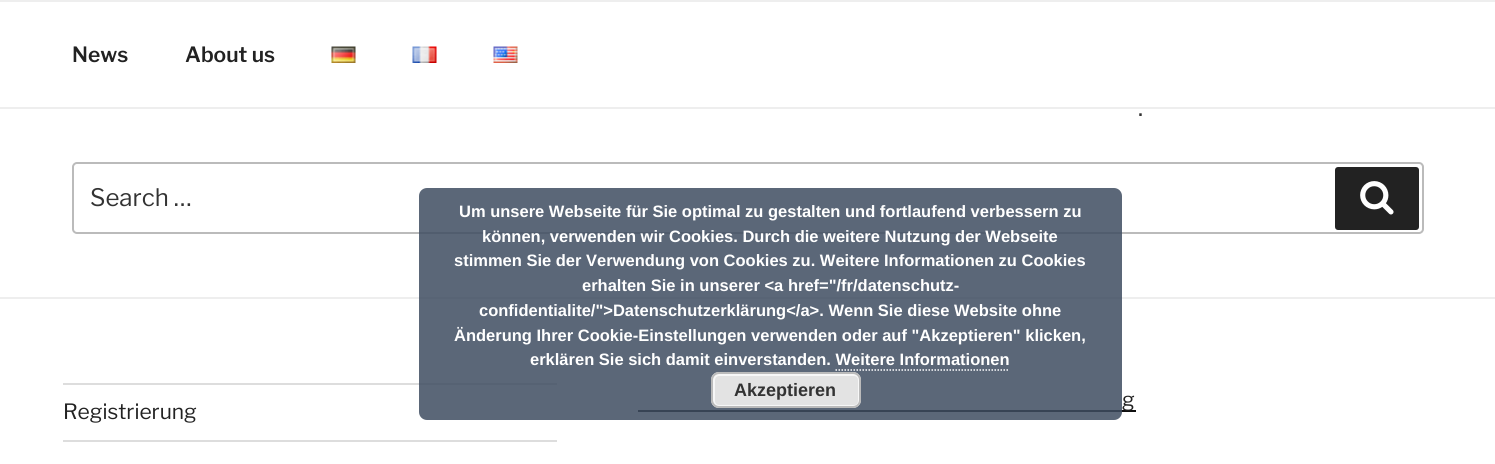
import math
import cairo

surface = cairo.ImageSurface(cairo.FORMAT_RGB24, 1495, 464)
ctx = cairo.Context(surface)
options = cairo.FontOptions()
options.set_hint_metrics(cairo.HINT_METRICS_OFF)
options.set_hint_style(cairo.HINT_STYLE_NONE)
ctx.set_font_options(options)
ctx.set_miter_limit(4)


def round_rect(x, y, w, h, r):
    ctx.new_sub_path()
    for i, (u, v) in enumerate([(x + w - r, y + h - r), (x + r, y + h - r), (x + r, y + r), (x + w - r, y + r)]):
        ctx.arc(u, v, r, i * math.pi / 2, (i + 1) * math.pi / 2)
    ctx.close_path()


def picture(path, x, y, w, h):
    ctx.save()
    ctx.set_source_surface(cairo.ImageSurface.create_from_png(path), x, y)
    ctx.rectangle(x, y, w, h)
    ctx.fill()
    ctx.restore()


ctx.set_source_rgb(1, 1, 1)
ctx.paint()
ctx.set_source_rgb(0.933, 0.933, 0.933)
ctx.rectangle(0, 0, 1495, 2)
ctx.fill()
ctx.rectangle(0, 107, 1495, 2)
ctx.fill()
ctx.select_font_face("Libre Franklin SemiBold")
ctx.set_font_size(21)
ctx.set_source_rgb(0.133, 0.133, 0.133)
ctx.move_to(72, 62)
ctx.show_text("News")
ctx.move_to(185, 62)
ctx.show_text("About us")
picture("img1.png", 331, 46, 25, 17)
picture("img2.png", 412, 46, 25, 17)
picture("img3.png", 493, 46, 25, 17)
ctx.select_font_face("Libre Franklin")
ctx.set_font_size(24)
ctx.set_source_rgb(0.2, 0.2, 0.2)
ctx.move_to(1138, 116)
ctx.show_text(".")
round_rect(73, 163, 1350, 70, 4)
ctx.set_source_rgb(0.733, 0.733, 0.733)
ctx.stroke()
ctx.set_source_rgb(0.2, 0.2, 0.2)
ctx.move_to(90, 206)
ctx.show_text("Search …")
ctx.set_source_rgb(0.133, 0.133, 0.133)
round_rect(1335, 167, 84, 63, 3)
ctx.fill()
picture("img4.png", 1360, 181, 34, 34)
ctx.set_source_rgb(0.933, 0.933, 0.933)
ctx.rectangle(0, 297, 1495, 2)
ctx.fill()
ctx.set_source_rgb(0.867, 0.867, 0.867)
ctx.rectangle(63, 383, 494, 2)
ctx.fill()
ctx.rectangle(63, 440, 494, 2)
ctx.fill()
ctx.set_font_size(21)
ctx.set_source_rgb(0.133, 0.133, 0.133)
ctx.move_to(63, 419)
ctx.show_text("Registrierung")
ctx.set_source_rgb(0.059, 0.059, 0.059)
ctx.rectangle(638, 410, 498, 2)
ctx.fill()
ctx.set_source_rgb(0.133, 0.133, 0.133)
ctx.move_to(1122, 407)
ctx.show_text("g")
ctx.set_source_rgba(0.247, 0.302, 0.38, 0.85)
round_rect(419, 188, 703, 232, 8)
ctx.fill()
ctx.select_font_face("Liberation Sans", cairo.FONT_SLANT_NORMAL, cairo.FONT_WEIGHT_BOLD)
ctx.set_font_size(16.5)
ctx.set_source_rgb(1, 1, 1)
ctx.move_to(459, 217)
ctx.show_text("Um unsere Webseite für Sie optimal zu gestalten und fortlaufend verbessern zu")
ctx.move_to(482, 242)
ctx.show_text("können, verwenden wir Cookies. Durch die weitere Nutzung der Webseite")
ctx.move_to(454, 266)
ctx.show_text("stimmen Sie der Verwendung von Cookies zu. Weitere Informationen zu Cookies")
ctx.move_to(582, 291)
ctx.show_text("erhalten Sie in unserer <a href=\"/fr/datenschutz-")
ctx.move_to(479, 316)
ctx.show_text("confidentialite/\">Datenschutzerklärung</a>. Wenn Sie diese Website ohne")
ctx.move_to(454, 341)
ctx.show_text("Änderung Ihrer Cookie-Einstellungen verwenden oder auf \"Akzeptieren\" klicken,")
ctx.move_to(530, 365)
ctx.show_text("erklären Sie sich damit einverstanden. Weitere Informationen")
ctx.new_path()
ctx.move_to(835.5, 370)
ctx.line_to(1009.5, 370)
ctx.set_line_width(1.5)
ctx.set_dash([1.5, 1.5])
ctx.stroke()
ctx.set_source_rgb(0.89, 0.89, 0.89)
round_rect(711, 372, 150, 36, 8)
ctx.fill()
round_rect(714, 375, 145, 31, 5)
ctx.set_source_rgb(0.965, 0.965, 0.965)
ctx.set_line_width(2)
ctx.set_dash([])
ctx.stroke()
round_rect(712, 373, 148, 34, 7)
ctx.set_source_rgb(0.733, 0.733, 0.733)
ctx.stroke()
ctx.set_font_size(18)
ctx.set_source_rgb(0.2, 0.2, 0.2)
ctx.move_to(734, 396)
ctx.show_text("Akzeptieren")
surface.write_to_png("page.png")
